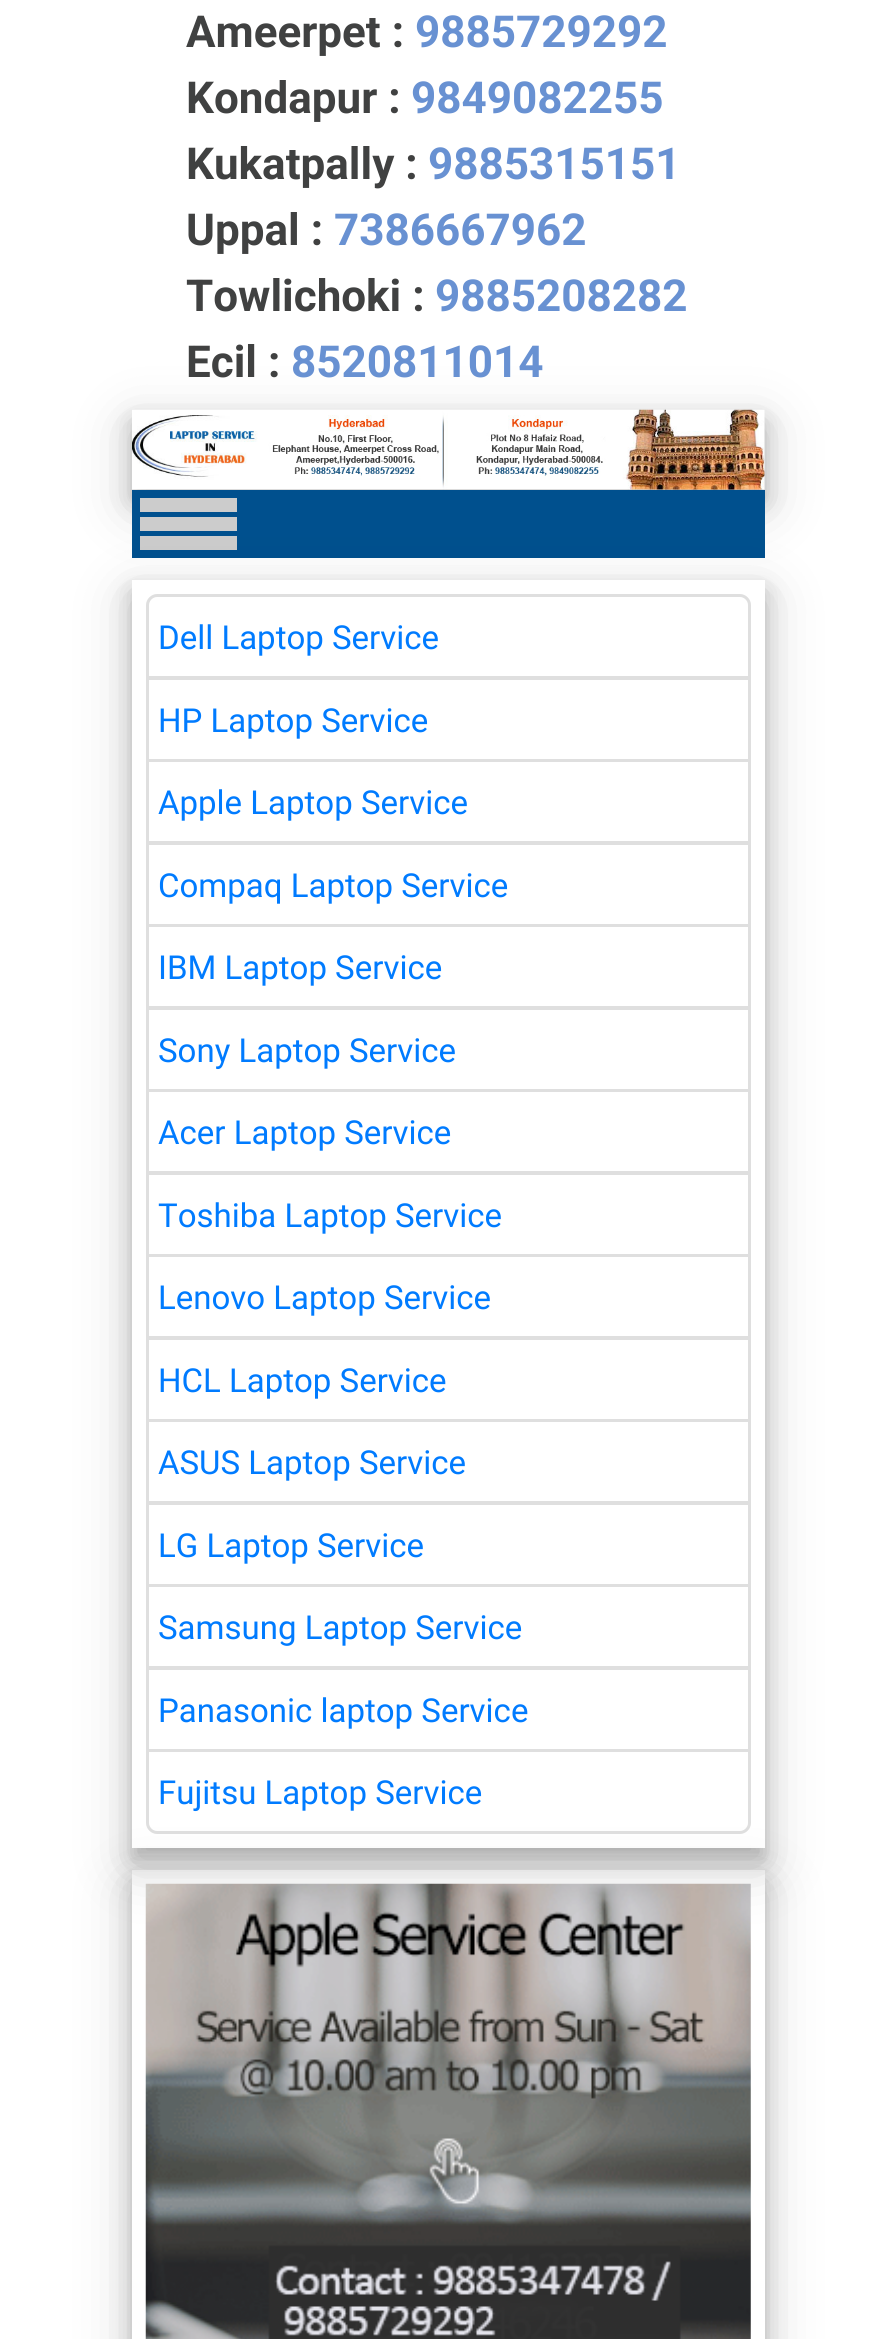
import math
import cairo

surface = cairo.ImageSurface(cairo.FORMAT_RGB24, 895, 2339)
ctx = cairo.Context(surface)
options = cairo.FontOptions()
options.set_hint_metrics(cairo.HINT_METRICS_OFF)
options.set_hint_style(cairo.HINT_STYLE_NONE)
ctx.set_font_options(options)
ctx.set_miter_limit(4)


def round_rect(x, y, w, h, r):
    ctx.new_sub_path()
    for i, (u, v) in enumerate([(x + w - r, y + h - r), (x + r, y + h - r), (x + r, y + r), (x + w - r, y + r)]):
        ctx.arc(u, v, r, i * math.pi / 2, (i + 1) * math.pi / 2)
    ctx.close_path()


def shadow(x, y, w, h, r, blur, alpha):
    ctx.push_group_with_content(cairo.CONTENT_ALPHA)
    ctx.set_operator(cairo.OPERATOR_SOURCE)
    for i in range(15, -16, -2):
        e = blur * i / 6
        if min(w, h) + 2 * e > 0:
            ctx.set_source_rgba(0, 0, 0, alpha * math.erfc((i - 1) / 8.5) / 2)
            round_rect(x - e, y - e, w + 2 * e, h + 2 * e, max(0, min(r + e + blur * .6, min(w, h) / 2 + e)))
            ctx.fill()
    ctx.mask(ctx.pop_group())


def picture(path, x, y, w, h):
    ctx.save()
    ctx.set_source_surface(cairo.ImageSurface.create_from_png(path), x, y)
    ctx.rectangle(x, y, w, h)
    ctx.fill()
    ctx.restore()


ctx.set_source_rgb(1, 1, 1)
ctx.paint()
ctx.select_font_face("Roboto", cairo.FONT_SLANT_NORMAL, cairo.FONT_WEIGHT_BOLD)
ctx.set_font_size(44)
ctx.set_source_rgb(0.251, 0.255, 0.255)
ctx.move_to(186, 47)
ctx.show_text("Ameerpet :")
ctx.set_source_rgb(0.408, 0.569, 0.824)
ctx.move_to(415, 47)
ctx.show_text("9885729292")
ctx.set_source_rgb(0.251, 0.255, 0.255)
ctx.move_to(186, 113)
ctx.show_text("Kondapur :")
ctx.set_source_rgb(0.408, 0.569, 0.824)
ctx.move_to(411, 113)
ctx.show_text("9849082255")
ctx.set_source_rgb(0.251, 0.255, 0.255)
ctx.move_to(186, 179)
ctx.show_text("Kukatpally :")
ctx.set_source_rgb(0.408, 0.569, 0.824)
ctx.move_to(428, 179)
ctx.show_text("9885315151")
ctx.set_source_rgb(0.251, 0.255, 0.255)
ctx.move_to(186, 245)
ctx.show_text("Uppal :")
ctx.set_source_rgb(0.408, 0.569, 0.824)
ctx.move_to(334, 245)
ctx.show_text("7386667962")
ctx.set_source_rgb(0.251, 0.255, 0.255)
ctx.move_to(186, 311)
ctx.show_text("Towlichoki :")
ctx.set_source_rgb(0.408, 0.569, 0.824)
ctx.move_to(435, 311)
ctx.show_text("9885208282")
ctx.set_source_rgb(0, 0, 0)
shadow(132, 426, 633, 80, 0, 27.5, 0.19)
ctx.set_source_rgb(0.251, 0.255, 0.255)
ctx.move_to(186, 377)
ctx.show_text("Ecil :")
ctx.set_source_rgb(0.408, 0.569, 0.824)
ctx.move_to(291, 377)
ctx.show_text("8520811014")
ctx.set_source_rgb(0, 0, 0)
shadow(132, 421, 633, 80, 0, 11, 0.2)
picture("img1.png", 132, 409, 633, 81)
ctx.set_source_rgb(0, 0.314, 0.557)
ctx.rectangle(132, 490, 633, 68)
ctx.fill()
ctx.set_source_rgb(0.8, 0.8, 0.8)
ctx.rectangle(140, 498, 97, 14)
ctx.fill()
ctx.rectangle(140, 517, 97, 14)
ctx.fill()
ctx.rectangle(140, 536, 97, 14)
ctx.fill()
ctx.save()
ctx.set_fill_rule(cairo.FILL_RULE_EVEN_ODD)
ctx.new_path()
ctx.move_to(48, 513)
ctx.line_to(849, 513)
ctx.line_to(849, 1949)
ctx.line_to(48, 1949)
ctx.close_path()
ctx.move_to(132, 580)
ctx.line_to(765, 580)
ctx.line_to(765, 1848)
ctx.line_to(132, 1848)
ctx.close_path()
ctx.clip()
ctx.set_source_rgb(0, 0, 0)
shadow(132, 597, 633, 1268, 0, 27.5, 0.19)
ctx.restore()
ctx.save()
ctx.set_fill_rule(cairo.FILL_RULE_EVEN_ODD)
ctx.new_path()
ctx.move_to(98, 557)
ctx.line_to(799, 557)
ctx.line_to(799, 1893)
ctx.line_to(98, 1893)
ctx.close_path()
ctx.move_to(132, 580)
ctx.line_to(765, 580)
ctx.line_to(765, 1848)
ctx.line_to(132, 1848)
ctx.close_path()
ctx.clip()
ctx.set_source_rgb(0, 0, 0)
shadow(132, 591, 633, 1268, 0, 11, 0.2)
ctx.restore()
ctx.new_path()
ctx.move_to(157, 595.5)
ctx.line_to(740, 595.5)
ctx.curve_to(745, 595.5, 749.5, 600, 749.5, 605)
ctx.line_to(749.5, 677.5)
ctx.line_to(147.5, 677.5)
ctx.line_to(147.5, 605)
ctx.curve_to(147.5, 600, 152, 595.5, 157, 595.5)
ctx.close_path()
ctx.set_source_rgb(0.875, 0.875, 0.875)
ctx.set_line_width(3)
ctx.stroke()
ctx.select_font_face("Roboto")
ctx.set_font_size(33)
ctx.set_source_rgb(0, 0.482, 1)
ctx.move_to(158, 649)
ctx.show_text("Dell Laptop Service")
ctx.rectangle(147.5, 678.5, 602, 82)
ctx.set_source_rgb(0.875, 0.875, 0.875)
ctx.stroke()
ctx.set_source_rgb(0, 0.482, 1)
ctx.move_to(158, 732)
ctx.show_text("HP Laptop Service")
ctx.rectangle(147.5, 760.5, 602, 82)
ctx.set_source_rgb(0.875, 0.875, 0.875)
ctx.stroke()
ctx.set_source_rgb(0, 0.482, 1)
ctx.move_to(158, 814)
ctx.show_text("Apple Laptop Service")
ctx.rectangle(147.5, 843.5, 602, 82)
ctx.set_source_rgb(0.875, 0.875, 0.875)
ctx.stroke()
ctx.set_source_rgb(0, 0.482, 1)
ctx.move_to(158, 897)
ctx.show_text("Compaq Laptop Service")
ctx.rectangle(147.5, 925.5, 602, 82)
ctx.set_source_rgb(0.875, 0.875, 0.875)
ctx.stroke()
ctx.set_source_rgb(0, 0.482, 1)
ctx.move_to(158, 979)
ctx.show_text("IBM Laptop Service")
ctx.rectangle(147.5, 1008.5, 602, 82)
ctx.set_source_rgb(0.875, 0.875, 0.875)
ctx.stroke()
ctx.set_source_rgb(0, 0.482, 1)
ctx.move_to(158, 1062)
ctx.show_text("Sony Laptop Service")
ctx.rectangle(147.5, 1090.5, 602, 82)
ctx.set_source_rgb(0.875, 0.875, 0.875)
ctx.stroke()
ctx.set_source_rgb(0, 0.482, 1)
ctx.move_to(158, 1144)
ctx.show_text("Acer Laptop Service")
ctx.rectangle(147.5, 1173.5, 602, 82)
ctx.set_source_rgb(0.875, 0.875, 0.875)
ctx.stroke()
ctx.set_source_rgb(0, 0.482, 1)
ctx.move_to(158, 1227)
ctx.show_text("Toshiba Laptop Service")
ctx.rectangle(147.5, 1255.5, 602, 82)
ctx.set_source_rgb(0.875, 0.875, 0.875)
ctx.stroke()
ctx.set_source_rgb(0, 0.482, 1)
ctx.move_to(158, 1309)
ctx.show_text("Lenovo Laptop Service")
ctx.rectangle(147.5, 1338.5, 602, 82)
ctx.set_source_rgb(0.875, 0.875, 0.875)
ctx.stroke()
ctx.set_source_rgb(0, 0.482, 1)
ctx.move_to(158, 1392)
ctx.show_text("HCL Laptop Service")
ctx.rectangle(147.5, 1420.5, 602, 82)
ctx.set_source_rgb(0.875, 0.875, 0.875)
ctx.stroke()
ctx.set_source_rgb(0, 0.482, 1)
ctx.move_to(158, 1474)
ctx.show_text("ASUS Laptop Service")
ctx.rectangle(147.5, 1503.5, 602, 82)
ctx.set_source_rgb(0.875, 0.875, 0.875)
ctx.stroke()
ctx.set_source_rgb(0, 0.482, 1)
ctx.move_to(158, 1557)
ctx.show_text("LG Laptop Service")
ctx.rectangle(147.5, 1585.5, 602, 82)
ctx.set_source_rgb(0.875, 0.875, 0.875)
ctx.stroke()
ctx.set_source_rgb(0, 0.482, 1)
ctx.move_to(158, 1639)
ctx.show_text("Samsung Laptop Service")
ctx.rectangle(147.5, 1668.5, 602, 82)
ctx.set_source_rgb(0.875, 0.875, 0.875)
ctx.stroke()
ctx.set_source_rgb(0, 0.482, 1)
ctx.move_to(158, 1722)
ctx.show_text("Panasonic laptop Service")
ctx.set_source_rgb(1, 1, 1)
ctx.new_path()
ctx.move_to(147.5, 1750.5)
ctx.line_to(749.5, 1750.5)
ctx.line_to(749.5, 1823)
ctx.curve_to(749.5, 1828, 745, 1832.5, 740, 1832.5)
ctx.line_to(157, 1832.5)
ctx.curve_to(152, 1832.5, 147.5, 1828, 147.5, 1823)
ctx.close_path()
ctx.fill_preserve()
ctx.set_source_rgb(0.875, 0.875, 0.875)
ctx.stroke()
ctx.set_source_rgb(0, 0.482, 1)
ctx.move_to(158, 1804)
ctx.show_text("Fujitsu Laptop Service")
ctx.save()
ctx.set_fill_rule(cairo.FILL_RULE_EVEN_ODD)
ctx.new_path()
ctx.move_to(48, 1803)
ctx.line_to(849, 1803)
ctx.line_to(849, 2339)
ctx.line_to(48, 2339)
ctx.close_path()
ctx.move_to(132, 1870)
ctx.line_to(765, 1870)
ctx.line_to(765, 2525)
ctx.line_to(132, 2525)
ctx.close_path()
ctx.clip()
ctx.set_source_rgb(0, 0, 0)
shadow(132, 1887, 633, 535, 0, 27.5, 0.19)
ctx.restore()
ctx.save()
ctx.set_fill_rule(cairo.FILL_RULE_EVEN_ODD)
ctx.new_path()
ctx.move_to(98, 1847)
ctx.line_to(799, 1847)
ctx.line_to(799, 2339)
ctx.line_to(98, 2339)
ctx.close_path()
ctx.move_to(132, 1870)
ctx.line_to(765, 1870)
ctx.line_to(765, 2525)
ctx.line_to(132, 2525)
ctx.close_path()
ctx.clip()
ctx.set_source_rgb(0, 0, 0)
shadow(132, 1881, 633, 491, 0, 11, 0.2)
ctx.restore()
picture("img2.png", 145, 1883, 606, 456)
surface.write_to_png("page.png")
